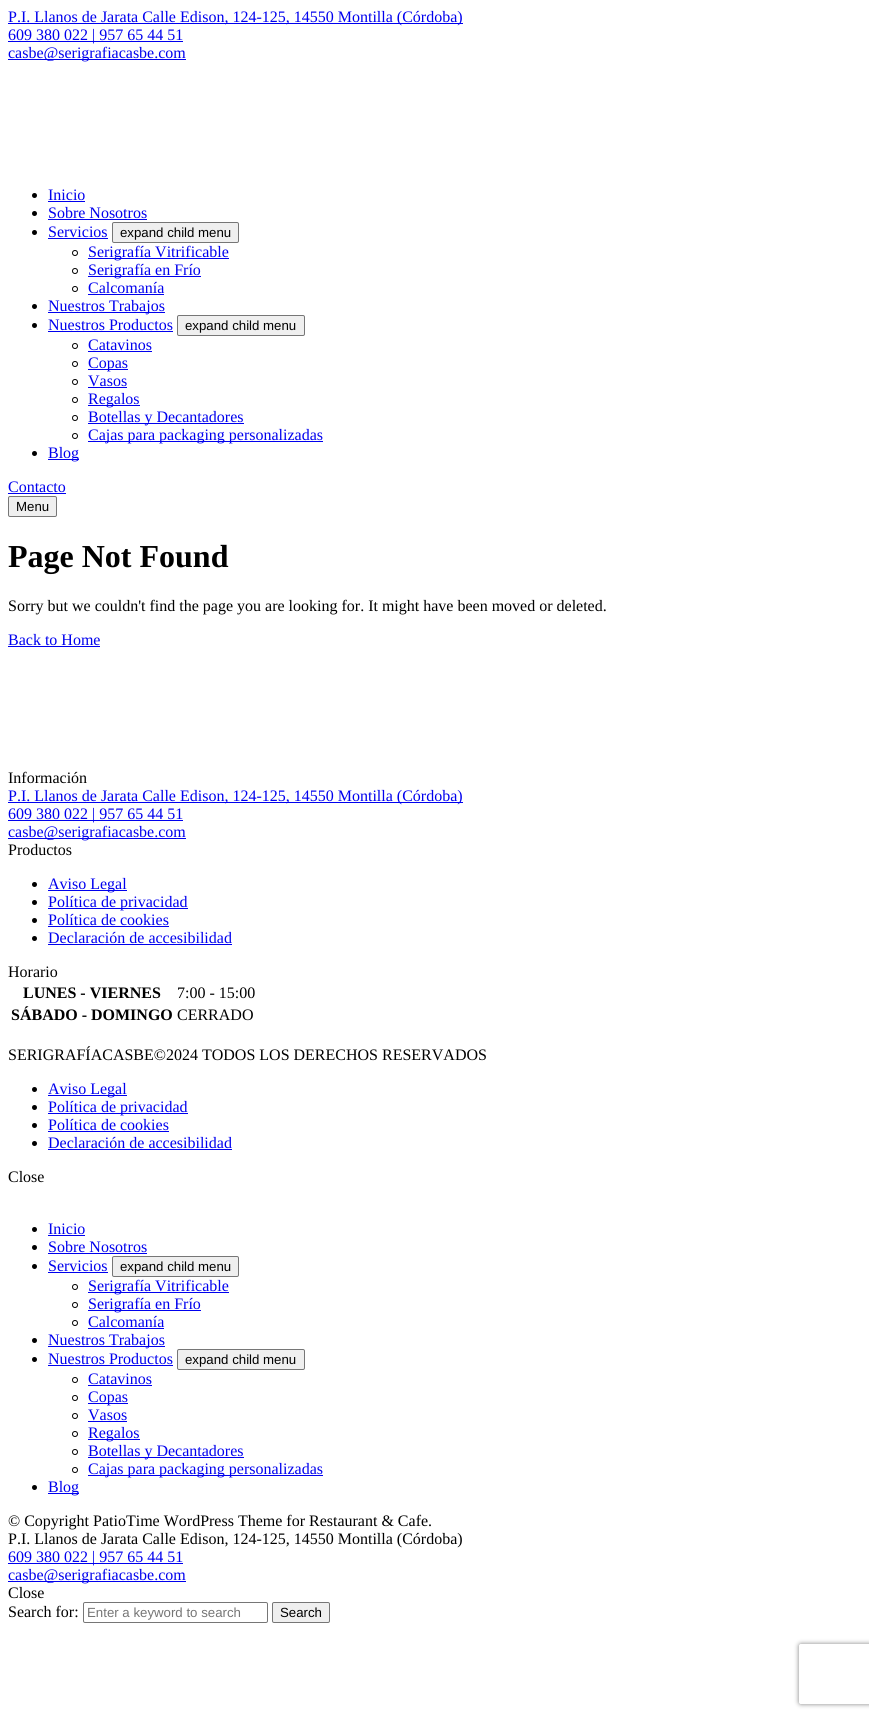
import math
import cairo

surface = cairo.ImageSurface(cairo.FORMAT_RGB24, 869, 1718)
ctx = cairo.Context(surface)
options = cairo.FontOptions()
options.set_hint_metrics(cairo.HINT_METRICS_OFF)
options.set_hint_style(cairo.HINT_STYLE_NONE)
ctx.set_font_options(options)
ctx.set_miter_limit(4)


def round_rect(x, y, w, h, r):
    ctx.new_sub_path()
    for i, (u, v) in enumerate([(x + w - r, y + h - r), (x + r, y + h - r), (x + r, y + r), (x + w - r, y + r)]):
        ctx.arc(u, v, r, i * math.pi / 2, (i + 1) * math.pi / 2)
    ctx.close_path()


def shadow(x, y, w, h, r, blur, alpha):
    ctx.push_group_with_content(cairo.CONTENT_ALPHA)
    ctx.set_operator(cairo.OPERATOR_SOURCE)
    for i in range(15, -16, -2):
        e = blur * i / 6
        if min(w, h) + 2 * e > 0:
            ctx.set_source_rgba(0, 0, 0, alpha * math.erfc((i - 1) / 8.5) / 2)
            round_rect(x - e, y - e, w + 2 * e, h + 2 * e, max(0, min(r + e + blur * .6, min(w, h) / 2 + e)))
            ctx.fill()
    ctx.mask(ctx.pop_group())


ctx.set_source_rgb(1, 1, 1)
ctx.paint()
ctx.set_source_rgb(0, 0, 0.933)
ctx.rectangle(8, 23, 455, 1)
ctx.fill()
ctx.select_font_face("Liberation Serif")
ctx.set_font_size(16)
ctx.move_to(8, 22)
ctx.show_text("P.I. Llanos de Jarata Calle Edison, 124-125, 14550 Montilla (Córdoba)")
ctx.rectangle(8, 41, 175, 1)
ctx.fill()
ctx.move_to(8, 40)
ctx.show_text("609 380 022 | 957 65 44 51")
ctx.rectangle(8, 59, 178, 1)
ctx.fill()
ctx.move_to(8, 58)
ctx.show_text("casbe@serigrafiacasbe.com")
ctx.set_source_rgb(0, 0, 0)
ctx.new_path()
ctx.arc(34.5, 195.5, 2.5, 0, 2 * math.pi)
ctx.fill()
ctx.set_source_rgb(0, 0, 0.933)
ctx.move_to(48, 200)
ctx.show_text("Inicio")
ctx.rectangle(48, 201, 37, 1)
ctx.fill()
ctx.set_source_rgb(0, 0, 0)
ctx.arc(34.5, 213.5, 2.5, 0, 2 * math.pi)
ctx.fill()
ctx.set_source_rgb(0, 0, 0.933)
ctx.move_to(48, 218)
ctx.show_text("Sobre Nosotros")
ctx.rectangle(48, 219, 99, 1)
ctx.fill()
ctx.set_source_rgb(0, 0, 0)
ctx.arc(34.5, 232.5, 2.5, 0, 2 * math.pi)
ctx.fill()
ctx.set_source_rgb(0, 0, 0.933)
ctx.move_to(48, 237)
ctx.show_text("Servicios")
ctx.rectangle(48, 238, 60, 1)
ctx.fill()
ctx.set_source_rgb(0.937, 0.937, 0.937)
round_rect(112.5, 222.5, 126, 20, 1.5)
ctx.fill_preserve()
ctx.set_source_rgb(0.463, 0.463, 0.463)
ctx.set_line_width(1)
ctx.stroke()
ctx.select_font_face("Liberation Sans")
ctx.set_font_size(13.25)
ctx.set_source_rgb(0, 0, 0)
ctx.move_to(120, 237)
ctx.show_text("expand child menu")
ctx.new_path()
ctx.arc(75, 253, 2.5, 0, 2 * math.pi)
ctx.stroke()
ctx.set_source_rgb(0, 0, 0.933)
ctx.rectangle(88, 258, 141, 1)
ctx.fill()
ctx.select_font_face("Liberation Serif")
ctx.set_font_size(16)
ctx.move_to(88, 257)
ctx.show_text("Serigrafía Vitrificable")
ctx.new_path()
ctx.arc(75, 271, 2.5, 0, 2 * math.pi)
ctx.set_source_rgb(0, 0, 0)
ctx.stroke()
ctx.set_source_rgb(0, 0, 0.933)
ctx.rectangle(88, 276, 113, 1)
ctx.fill()
ctx.move_to(88, 275)
ctx.show_text("Serigrafía en Frío")
ctx.new_path()
ctx.arc(75, 289, 2.5, 0, 2 * math.pi)
ctx.set_source_rgb(0, 0, 0)
ctx.stroke()
ctx.set_source_rgb(0, 0, 0.933)
ctx.move_to(88, 293)
ctx.show_text("Calcomanía")
ctx.rectangle(88, 294, 76, 1)
ctx.fill()
ctx.set_source_rgb(0, 0, 0)
ctx.arc(34.5, 306.5, 2.5, 0, 2 * math.pi)
ctx.fill()
ctx.set_source_rgb(0, 0, 0.933)
ctx.rectangle(48, 312, 117, 1)
ctx.fill()
ctx.move_to(48, 311)
ctx.show_text("Nuestros Trabajos")
ctx.set_source_rgb(0, 0, 0)
ctx.new_path()
ctx.arc(34.5, 325.5, 2.5, 0, 2 * math.pi)
ctx.fill()
ctx.set_source_rgb(0, 0, 0.933)
ctx.move_to(48, 330)
ctx.show_text("Nuestros Productos")
ctx.rectangle(48, 331, 125, 1)
ctx.fill()
ctx.set_source_rgb(0.937, 0.937, 0.937)
round_rect(177.5, 315.5, 127, 20, 1.5)
ctx.fill_preserve()
ctx.set_source_rgb(0.463, 0.463, 0.463)
ctx.stroke()
ctx.select_font_face("Liberation Sans")
ctx.set_font_size(13.25)
ctx.set_source_rgb(0, 0, 0)
ctx.move_to(185, 330)
ctx.show_text("expand child menu")
ctx.new_path()
ctx.arc(75, 346, 2.5, 0, 2 * math.pi)
ctx.stroke()
ctx.select_font_face("Liberation Serif")
ctx.set_font_size(16)
ctx.set_source_rgb(0, 0, 0.933)
ctx.move_to(88, 350)
ctx.show_text("Catavinos")
ctx.rectangle(88, 351, 64, 1)
ctx.fill()
ctx.arc(75, 364, 2.5, 0, 2 * math.pi)
ctx.set_source_rgb(0, 0, 0)
ctx.stroke()
ctx.set_source_rgb(0, 0, 0.933)
ctx.rectangle(88, 369, 40, 1)
ctx.fill()
ctx.move_to(88, 368)
ctx.show_text("Copas")
ctx.new_path()
ctx.arc(75, 382, 2.5, 0, 2 * math.pi)
ctx.set_source_rgb(0, 0, 0)
ctx.stroke()
ctx.set_source_rgb(0, 0, 0.933)
ctx.move_to(88, 386)
ctx.show_text("Vasos")
ctx.rectangle(88, 387, 39, 1)
ctx.fill()
ctx.arc(75, 400, 2.5, 0, 2 * math.pi)
ctx.set_source_rgb(0, 0, 0)
ctx.stroke()
ctx.set_source_rgb(0, 0, 0.933)
ctx.rectangle(88, 405, 52, 1)
ctx.fill()
ctx.move_to(88, 404)
ctx.show_text("Regalos")
ctx.new_path()
ctx.arc(75, 418, 2.5, 0, 2 * math.pi)
ctx.set_source_rgb(0, 0, 0)
ctx.stroke()
ctx.set_source_rgb(0, 0, 0.933)
ctx.rectangle(88, 423, 156, 1)
ctx.fill()
ctx.move_to(88, 422)
ctx.show_text("Botellas y Decantadores")
ctx.new_path()
ctx.arc(75, 436, 2.5, 0, 2 * math.pi)
ctx.set_source_rgb(0, 0, 0)
ctx.stroke()
ctx.set_source_rgb(0, 0, 0.933)
ctx.rectangle(88, 441, 235, 1)
ctx.fill()
ctx.move_to(88, 440)
ctx.show_text("Cajas para packaging personalizadas")
ctx.set_source_rgb(0, 0, 0)
ctx.new_path()
ctx.arc(34.5, 453.5, 2.5, 0, 2 * math.pi)
ctx.fill()
ctx.set_source_rgb(0, 0, 0.933)
ctx.rectangle(48, 459, 31, 1)
ctx.fill()
ctx.move_to(48, 458)
ctx.show_text("Blog")
ctx.move_to(8, 492)
ctx.show_text("Contacto")
ctx.rectangle(8, 493, 58, 1)
ctx.fill()
ctx.set_source_rgb(0.937, 0.937, 0.937)
round_rect(8.5, 496.5, 48, 20, 1.5)
ctx.fill_preserve()
ctx.set_source_rgb(0.463, 0.463, 0.463)
ctx.stroke()
ctx.select_font_face("Liberation Sans")
ctx.set_font_size(13.25)
ctx.set_source_rgb(0, 0, 0)
ctx.move_to(16, 511)
ctx.show_text("Menu")
ctx.select_font_face("Liberation Serif", cairo.FONT_SLANT_NORMAL, cairo.FONT_WEIGHT_BOLD)
ctx.set_font_size(32)
ctx.move_to(8, 567)
ctx.show_text("Page Not Found")
ctx.select_font_face("Liberation Serif")
ctx.set_font_size(16)
ctx.move_to(8, 611)
ctx.show_text("Sorry but we couldn't find the page you are looking for. It might have been moved or deleted.")
ctx.set_source_rgb(0, 0, 0.933)
ctx.move_to(8, 645)
ctx.show_text("Back to Home")
ctx.rectangle(8, 646, 92, 1)
ctx.fill()
ctx.set_source_rgb(0, 0, 0)
ctx.move_to(8, 783)
ctx.show_text("Información")
ctx.set_source_rgb(0, 0, 0.933)
ctx.rectangle(8, 802, 455, 1)
ctx.fill()
ctx.move_to(8, 801)
ctx.show_text("P.I. Llanos de Jarata Calle Edison, 124-125, 14550 Montilla (Córdoba)")
ctx.rectangle(8, 820, 175, 1)
ctx.fill()
ctx.move_to(8, 819)
ctx.show_text("609 380 022 | 957 65 44 51")
ctx.rectangle(8, 838, 178, 1)
ctx.fill()
ctx.move_to(8, 837)
ctx.show_text("casbe@serigrafiacasbe.com")
ctx.set_source_rgb(0, 0, 0)
ctx.move_to(8, 855)
ctx.show_text("Productos")
ctx.new_path()
ctx.arc(34.5, 884.5, 2.5, 0, 2 * math.pi)
ctx.fill()
ctx.set_source_rgb(0, 0, 0.933)
ctx.rectangle(48, 890, 79, 1)
ctx.fill()
ctx.move_to(48, 889)
ctx.show_text("Aviso Legal")
ctx.set_source_rgb(0, 0, 0)
ctx.new_path()
ctx.arc(34.5, 902.5, 2.5, 0, 2 * math.pi)
ctx.fill()
ctx.set_source_rgb(0, 0, 0.933)
ctx.rectangle(48, 908, 140, 1)
ctx.fill()
ctx.move_to(48, 907)
ctx.show_text("Política de privacidad")
ctx.set_source_rgb(0, 0, 0)
ctx.new_path()
ctx.arc(34.5, 920.5, 2.5, 0, 2 * math.pi)
ctx.fill()
ctx.set_source_rgb(0, 0, 0.933)
ctx.move_to(48, 925)
ctx.show_text("Política de cookies")
ctx.rectangle(48, 926, 121, 1)
ctx.fill()
ctx.set_source_rgb(0, 0, 0)
ctx.arc(34.5, 938.5, 2.5, 0, 2 * math.pi)
ctx.fill()
ctx.set_source_rgb(0, 0, 0.933)
ctx.move_to(48, 943)
ctx.show_text("Declaración de accesibilidad")
ctx.rectangle(48, 944, 184, 1)
ctx.fill()
ctx.set_source_rgb(0, 0, 0)
ctx.move_to(8, 977)
ctx.show_text("Horario")
ctx.select_font_face("Liberation Serif", cairo.FONT_SLANT_NORMAL, cairo.FONT_WEIGHT_BOLD)
ctx.move_to(23, 998)
ctx.show_text("LUNES - VIERNES")
ctx.select_font_face("Liberation Serif")
ctx.move_to(177, 998)
ctx.show_text("7:00 - 15:00")
ctx.select_font_face("Liberation Serif", cairo.FONT_SLANT_NORMAL, cairo.FONT_WEIGHT_BOLD)
ctx.move_to(11, 1020)
ctx.show_text("SÁBADO - DOMINGO")
ctx.select_font_face("Liberation Serif")
ctx.move_to(177, 1020)
ctx.show_text("CERRADO")
ctx.move_to(8, 1060)
ctx.show_text("SERIGRAFÍACASBE©2024 TODOS LOS DERECHOS RESERVADOS")
ctx.new_path()
ctx.arc(34.5, 1089.5, 2.5, 0, 2 * math.pi)
ctx.fill()
ctx.set_source_rgb(0, 0, 0.933)
ctx.rectangle(48, 1095, 79, 1)
ctx.fill()
ctx.move_to(48, 1094)
ctx.show_text("Aviso Legal")
ctx.set_source_rgb(0, 0, 0)
ctx.new_path()
ctx.arc(34.5, 1107.5, 2.5, 0, 2 * math.pi)
ctx.fill()
ctx.set_source_rgb(0, 0, 0.933)
ctx.rectangle(48, 1113, 140, 1)
ctx.fill()
ctx.move_to(48, 1112)
ctx.show_text("Política de privacidad")
ctx.set_source_rgb(0, 0, 0)
ctx.new_path()
ctx.arc(34.5, 1125.5, 2.5, 0, 2 * math.pi)
ctx.fill()
ctx.set_source_rgb(0, 0, 0.933)
ctx.move_to(48, 1130)
ctx.show_text("Política de cookies")
ctx.rectangle(48, 1131, 121, 1)
ctx.fill()
ctx.set_source_rgb(0, 0, 0)
ctx.arc(34.5, 1143.5, 2.5, 0, 2 * math.pi)
ctx.fill()
ctx.set_source_rgb(0, 0, 0.933)
ctx.move_to(48, 1148)
ctx.show_text("Declaración de accesibilidad")
ctx.rectangle(48, 1149, 184, 1)
ctx.fill()
ctx.set_source_rgb(0, 0, 0)
ctx.move_to(8, 1182)
ctx.show_text("Close")
ctx.new_path()
ctx.arc(34.5, 1229.5, 2.5, 0, 2 * math.pi)
ctx.fill()
ctx.set_source_rgb(0, 0, 0.933)
ctx.move_to(48, 1234)
ctx.show_text("Inicio")
ctx.rectangle(48, 1235, 37, 1)
ctx.fill()
ctx.set_source_rgb(0, 0, 0)
ctx.arc(34.5, 1247.5, 2.5, 0, 2 * math.pi)
ctx.fill()
ctx.set_source_rgb(0, 0, 0.933)
ctx.move_to(48, 1252)
ctx.show_text("Sobre Nosotros")
ctx.rectangle(48, 1253, 99, 1)
ctx.fill()
ctx.set_source_rgb(0, 0, 0)
ctx.arc(34.5, 1266.5, 2.5, 0, 2 * math.pi)
ctx.fill()
ctx.set_source_rgb(0, 0, 0.933)
ctx.move_to(48, 1271)
ctx.show_text("Servicios")
ctx.rectangle(48, 1272, 60, 1)
ctx.fill()
ctx.set_source_rgb(0.937, 0.937, 0.937)
round_rect(112.5, 1256.5, 126, 20, 1.5)
ctx.fill_preserve()
ctx.set_source_rgb(0.463, 0.463, 0.463)
ctx.stroke()
ctx.select_font_face("Liberation Sans")
ctx.set_font_size(13.25)
ctx.set_source_rgb(0, 0, 0)
ctx.move_to(120, 1271)
ctx.show_text("expand child menu")
ctx.new_path()
ctx.arc(75, 1287, 2.5, 0, 2 * math.pi)
ctx.stroke()
ctx.set_source_rgb(0, 0, 0.933)
ctx.rectangle(88, 1292, 141, 1)
ctx.fill()
ctx.select_font_face("Liberation Serif")
ctx.set_font_size(16)
ctx.move_to(88, 1291)
ctx.show_text("Serigrafía Vitrificable")
ctx.new_path()
ctx.arc(75, 1305, 2.5, 0, 2 * math.pi)
ctx.set_source_rgb(0, 0, 0)
ctx.stroke()
ctx.set_source_rgb(0, 0, 0.933)
ctx.rectangle(88, 1310, 113, 1)
ctx.fill()
ctx.move_to(88, 1309)
ctx.show_text("Serigrafía en Frío")
ctx.new_path()
ctx.arc(75, 1323, 2.5, 0, 2 * math.pi)
ctx.set_source_rgb(0, 0, 0)
ctx.stroke()
ctx.set_source_rgb(0, 0, 0.933)
ctx.move_to(88, 1327)
ctx.show_text("Calcomanía")
ctx.rectangle(88, 1328, 76, 1)
ctx.fill()
ctx.set_source_rgb(0, 0, 0)
ctx.arc(34.5, 1340.5, 2.5, 0, 2 * math.pi)
ctx.fill()
ctx.set_source_rgb(0, 0, 0.933)
ctx.rectangle(48, 1346, 117, 1)
ctx.fill()
ctx.move_to(48, 1345)
ctx.show_text("Nuestros Trabajos")
ctx.set_source_rgb(0, 0, 0)
ctx.new_path()
ctx.arc(34.5, 1359.5, 2.5, 0, 2 * math.pi)
ctx.fill()
ctx.set_source_rgb(0, 0, 0.933)
ctx.move_to(48, 1364)
ctx.show_text("Nuestros Productos")
ctx.rectangle(48, 1365, 125, 1)
ctx.fill()
ctx.set_source_rgb(0.937, 0.937, 0.937)
round_rect(177.5, 1349.5, 127, 20, 1.5)
ctx.fill_preserve()
ctx.set_source_rgb(0.463, 0.463, 0.463)
ctx.stroke()
ctx.select_font_face("Liberation Sans")
ctx.set_font_size(13.25)
ctx.set_source_rgb(0, 0, 0)
ctx.move_to(185, 1364)
ctx.show_text("expand child menu")
ctx.new_path()
ctx.arc(75, 1380, 2.5, 0, 2 * math.pi)
ctx.stroke()
ctx.select_font_face("Liberation Serif")
ctx.set_font_size(16)
ctx.set_source_rgb(0, 0, 0.933)
ctx.move_to(88, 1384)
ctx.show_text("Catavinos")
ctx.rectangle(88, 1385, 64, 1)
ctx.fill()
ctx.arc(75, 1398, 2.5, 0, 2 * math.pi)
ctx.set_source_rgb(0, 0, 0)
ctx.stroke()
ctx.set_source_rgb(0, 0, 0.933)
ctx.rectangle(88, 1403, 40, 1)
ctx.fill()
ctx.move_to(88, 1402)
ctx.show_text("Copas")
ctx.new_path()
ctx.arc(75, 1416, 2.5, 0, 2 * math.pi)
ctx.set_source_rgb(0, 0, 0)
ctx.stroke()
ctx.set_source_rgb(0, 0, 0.933)
ctx.move_to(88, 1420)
ctx.show_text("Vasos")
ctx.rectangle(88, 1421, 39, 1)
ctx.fill()
ctx.arc(75, 1434, 2.5, 0, 2 * math.pi)
ctx.set_source_rgb(0, 0, 0)
ctx.stroke()
ctx.set_source_rgb(0, 0, 0.933)
ctx.rectangle(88, 1439, 52, 1)
ctx.fill()
ctx.move_to(88, 1438)
ctx.show_text("Regalos")
ctx.new_path()
ctx.arc(75, 1452, 2.5, 0, 2 * math.pi)
ctx.set_source_rgb(0, 0, 0)
ctx.stroke()
ctx.set_source_rgb(0, 0, 0.933)
ctx.rectangle(88, 1457, 156, 1)
ctx.fill()
ctx.move_to(88, 1456)
ctx.show_text("Botellas y Decantadores")
ctx.new_path()
ctx.arc(75, 1470, 2.5, 0, 2 * math.pi)
ctx.set_source_rgb(0, 0, 0)
ctx.stroke()
ctx.set_source_rgb(0, 0, 0.933)
ctx.rectangle(88, 1475, 235, 1)
ctx.fill()
ctx.move_to(88, 1474)
ctx.show_text("Cajas para packaging personalizadas")
ctx.set_source_rgb(0, 0, 0)
ctx.new_path()
ctx.arc(34.5, 1487.5, 2.5, 0, 2 * math.pi)
ctx.fill()
ctx.set_source_rgb(0, 0, 0.933)
ctx.rectangle(48, 1493, 31, 1)
ctx.fill()
ctx.move_to(48, 1492)
ctx.show_text("Blog")
ctx.set_source_rgb(0, 0, 0)
ctx.move_to(8, 1526)
ctx.show_text("© Copyright PatioTime WordPress Theme for Restaurant & Cafe.")
ctx.move_to(8, 1544)
ctx.show_text("P.I. Llanos de Jarata Calle Edison, 124-125, 14550 Montilla (Córdoba)")
ctx.set_source_rgb(0, 0, 0.933)
ctx.rectangle(8, 1563, 175, 1)
ctx.fill()
ctx.move_to(8, 1562)
ctx.show_text("609 380 022 | 957 65 44 51")
ctx.rectangle(8, 1581, 178, 1)
ctx.fill()
ctx.move_to(8, 1580)
ctx.show_text("casbe@serigrafiacasbe.com")
ctx.set_source_rgb(0, 0, 0)
ctx.move_to(8, 1598)
ctx.show_text("Close")
ctx.move_to(8, 1617)
ctx.show_text("Search for:")
round_rect(83.5, 1602.5, 184, 20, 1.5)
ctx.set_source_rgb(0.463, 0.463, 0.463)
ctx.stroke()
ctx.select_font_face("Liberation Sans")
ctx.set_font_size(13.25)
ctx.set_source_rgb(0.459, 0.459, 0.459)
ctx.move_to(87, 1617)
ctx.show_text("Enter a keyword to search")
ctx.set_source_rgb(0.937, 0.937, 0.937)
round_rect(272.5, 1602.5, 57, 20, 1.5)
ctx.fill_preserve()
ctx.set_source_rgb(0.463, 0.463, 0.463)
ctx.stroke()
ctx.set_source_rgb(0, 0, 0)
ctx.move_to(280, 1617)
ctx.show_text("Search")
ctx.save()
ctx.set_fill_rule(cairo.FILL_RULE_EVEN_ODD)
ctx.new_path()
ctx.move_to(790, 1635)
ctx.line_to(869, 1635)
ctx.line_to(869, 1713)
ctx.line_to(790, 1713)
ctx.close_path()
ctx.move_to(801, 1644)
ctx.line_to(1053, 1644)
ctx.curve_to(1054, 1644, 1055, 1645, 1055, 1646)
ctx.line_to(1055, 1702)
ctx.curve_to(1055, 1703, 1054, 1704, 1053, 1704)
ctx.line_to(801, 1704)
ctx.curve_to(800, 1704, 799, 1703, 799, 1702)
ctx.line_to(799, 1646)
ctx.curve_to(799, 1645, 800, 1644, 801, 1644)
ctx.close_path()
ctx.clip()
ctx.set_source_rgb(0.502, 0.502, 0.502)
shadow(799, 1644, 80, 60, 2, 2.5, 1)
ctx.restore()
surface.write_to_png("page.png")
